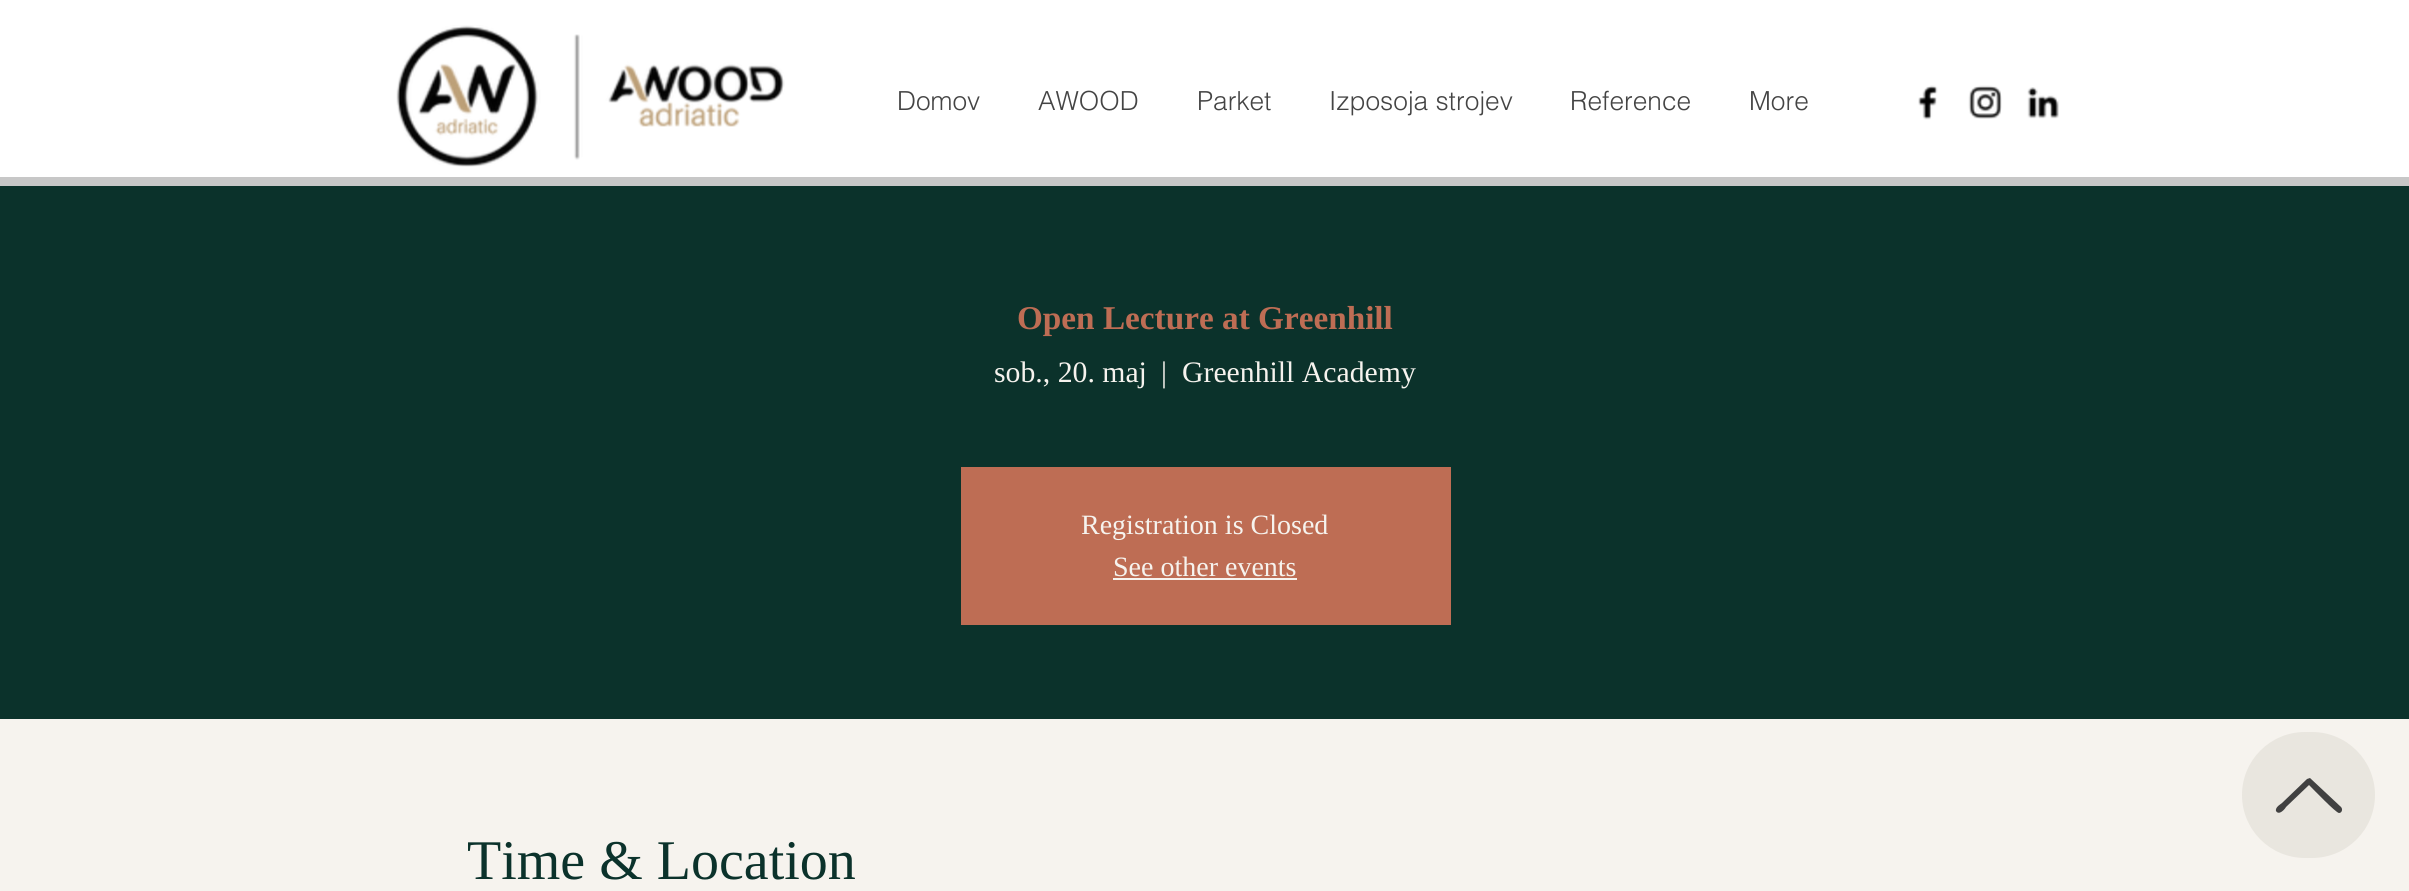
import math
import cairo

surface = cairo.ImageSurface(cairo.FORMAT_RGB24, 2409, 891)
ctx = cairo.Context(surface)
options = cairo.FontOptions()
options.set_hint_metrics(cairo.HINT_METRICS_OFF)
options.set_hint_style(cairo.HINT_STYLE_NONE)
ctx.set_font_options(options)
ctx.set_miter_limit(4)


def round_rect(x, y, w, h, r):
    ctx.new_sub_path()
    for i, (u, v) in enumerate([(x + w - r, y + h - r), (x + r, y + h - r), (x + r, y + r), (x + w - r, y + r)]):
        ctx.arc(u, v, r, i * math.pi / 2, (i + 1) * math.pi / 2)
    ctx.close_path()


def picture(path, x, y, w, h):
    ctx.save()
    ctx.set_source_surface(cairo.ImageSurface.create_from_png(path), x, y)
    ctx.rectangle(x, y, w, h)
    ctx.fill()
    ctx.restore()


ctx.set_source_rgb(1, 1, 1)
ctx.paint()
picture("img1.png", 396, 25, 389, 142)
ctx.select_font_face("helvetica Light")
ctx.set_font_size(26.25)
ctx.set_source_rgb(0.267, 0.267, 0.267)
ctx.move_to(897, 110)
ctx.show_text("Domov")
ctx.move_to(1038, 110)
ctx.show_text("AWOOD")
ctx.move_to(1197, 110)
ctx.show_text("Parket")
ctx.move_to(1329, 110)
ctx.show_text("Izposoja strojev")
ctx.move_to(1570, 110)
ctx.show_text("Reference")
ctx.move_to(1749, 110)
ctx.show_text("More")
picture("img2.png", 1918, 85, 20, 35)
picture("img3.png", 1968, 85, 34, 34)
picture("img4.png", 2027, 87, 32, 32)
ctx.set_source_rgb(0.78, 0.78, 0.78)
ctx.rectangle(0, 177, 2409, 9)
ctx.fill()
ctx.set_source_rgb(0.043, 0.196, 0.169)
ctx.rectangle(0, 186, 2409, 533)
ctx.fill()
ctx.select_font_face("Liberation Serif", cairo.FONT_SLANT_NORMAL, cairo.FONT_WEIGHT_BOLD)
ctx.set_font_size(33.25)
ctx.set_source_rgb(0.745, 0.427, 0.329)
ctx.move_to(1017, 329)
ctx.show_text("Open Lecture at Greenhill")
ctx.select_font_face("Liberation Serif")
ctx.set_font_size(29.75)
ctx.set_source_rgb(0.961, 0.953, 0.933)
ctx.move_to(994, 382)
ctx.show_text("sob., 20. maj")
ctx.move_to(1161, 382)
ctx.show_text("|")
ctx.move_to(1182, 382)
ctx.show_text("Greenhill Academy")
ctx.set_source_rgb(0.745, 0.427, 0.329)
ctx.rectangle(961, 467, 490, 158)
ctx.fill()
ctx.set_font_size(28)
ctx.set_source_rgb(0.961, 0.953, 0.933)
ctx.move_to(1081, 534)
ctx.show_text("Registration is Closed")
ctx.move_to(1113, 576)
ctx.show_text("See other events")
ctx.rectangle(1113, 578, 184, 2)
ctx.fill()
ctx.rectangle(0, 719, 2409, 172)
ctx.fill()
ctx.set_font_size(56)
ctx.set_source_rgb(0.043, 0.196, 0.169)
ctx.move_to(467, 879)
ctx.show_text("Time & Location")
ctx.set_source_rgb(0.914, 0.902, 0.875)
round_rect(2242, 732, 133, 126, 63)
ctx.fill()
ctx.set_source_rgb(0.255, 0.255, 0.255)
ctx.new_path()
ctx.move_to(2339, 813)
ctx.curve_to(2336, 813, 2313, 789, 2309, 785)
ctx.line_to(2286, 807)
ctx.curve_to(2285, 809, 2279, 816, 2276, 811)
ctx.curve_to(2275, 807, 2281, 804, 2282, 803)
ctx.line_to(2307, 779)
ctx.line_to(2310, 778)
ctx.line_to(2341, 807)
ctx.curve_to(2343, 809, 2342, 813, 2339, 813)
ctx.close_path()
ctx.fill()
surface.write_to_png("page.png")
